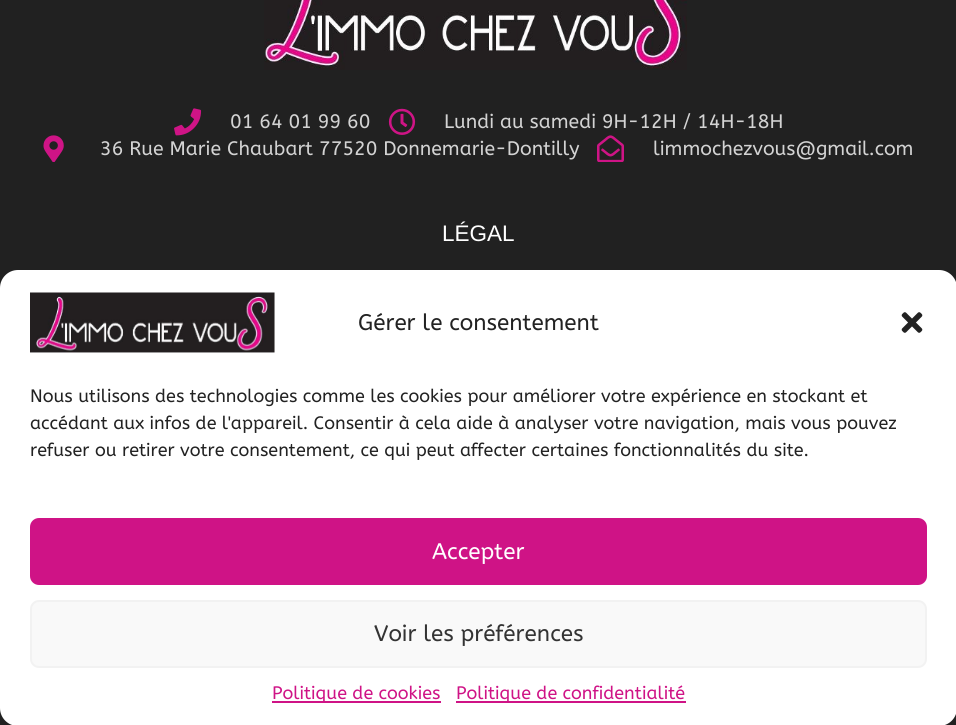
import math
import cairo

surface = cairo.ImageSurface(cairo.FORMAT_RGB24, 956, 725)
ctx = cairo.Context(surface)
options = cairo.FontOptions()
options.set_hint_metrics(cairo.HINT_METRICS_OFF)
options.set_hint_style(cairo.HINT_STYLE_NONE)
ctx.set_font_options(options)
ctx.set_miter_limit(4)


def round_rect(x, y, w, h, r):
    ctx.new_sub_path()
    for i, (u, v) in enumerate([(x + w - r, y + h - r), (x + r, y + h - r), (x + r, y + r), (x + w - r, y + r)]):
        ctx.arc(u, v, r, i * math.pi / 2, (i + 1) * math.pi / 2)
    ctx.close_path()


def picture(path, x, y, w, h):
    ctx.save()
    ctx.set_source_surface(cairo.ImageSurface.create_from_png(path), x, y)
    ctx.rectangle(x, y, w, h)
    ctx.fill()
    ctx.restore()


ctx.set_source_rgb(0.129, 0.129, 0.129)
ctx.paint()
picture("img1.png", 264, 0, 423, 70)
picture("img2.png", 174, 108, 28, 28)
ctx.select_font_face("ABeeZee")
ctx.set_font_size(19.5)
ctx.set_source_rgb(0.827, 0.827, 0.827)
ctx.move_to(230, 128)
ctx.show_text("01 64 01 99 60")
picture("img3.png", 388, 108, 28, 27)
ctx.move_to(444, 128)
ctx.show_text("Lundi au samedi 9H-12H / 14H-18H")
picture("img4.png", 43, 135, 21, 27)
ctx.move_to(100, 155)
ctx.show_text("36 Rue Marie Chaubart 77520 Donnemarie-Dontilly")
picture("img5.png", 597, 135, 27, 27)
ctx.move_to(653, 155)
ctx.show_text("limmochezvous@gmail.com")
ctx.select_font_face("Liberation Sans")
ctx.set_font_size(22.5)
ctx.set_source_rgb(1, 1, 1)
ctx.move_to(442, 241)
ctx.show_text("LÉGAL")
round_rect(0, 270, 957, 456, 18)
ctx.fill()
picture("img6.png", 30, 292, 245, 61)
ctx.select_font_face("ABeeZee")
ctx.set_source_rgb(0.133, 0.133, 0.133)
ctx.move_to(358, 330)
ctx.show_text("Gérer le consentement")
picture("img7.png", 901, 312, 22, 21)
ctx.set_font_size(18)
ctx.move_to(30, 402)
ctx.show_text("Nous utilisons des technologies comme les cookies pour améliorer votre expérience en stockant et")
ctx.move_to(30, 429)
ctx.show_text("accédant aux infos de l'appareil. Consentir à cela aide à analyser votre navigation, mais vous pouvez")
ctx.move_to(30, 456)
ctx.show_text("refuser ou retirer votre consentement, ce qui peut affecter certaines fonctionnalités du site.")
ctx.set_source_rgb(0.812, 0.078, 0.525)
round_rect(31, 519, 895, 65, 8)
ctx.fill_preserve()
ctx.stroke()
ctx.set_font_size(22.5)
ctx.set_source_rgb(1, 1, 1)
ctx.move_to(432, 559)
ctx.show_text("Accepter")
ctx.set_source_rgb(0.976, 0.976, 0.976)
round_rect(31, 601, 895, 66, 8)
ctx.fill_preserve()
ctx.set_source_rgb(0.949, 0.949, 0.949)
ctx.stroke()
ctx.set_source_rgb(0.2, 0.2, 0.2)
ctx.move_to(374, 641)
ctx.show_text("Voir les préférences")
ctx.set_source_rgb(0.812, 0.078, 0.525)
ctx.rectangle(272, 701, 169, 2)
ctx.fill()
ctx.set_font_size(18)
ctx.move_to(272, 699)
ctx.show_text("Politique de cookies")
ctx.rectangle(456, 701, 230, 2)
ctx.fill()
ctx.move_to(456, 699)
ctx.show_text("Politique de confidentialité")
surface.write_to_png("page.png")
